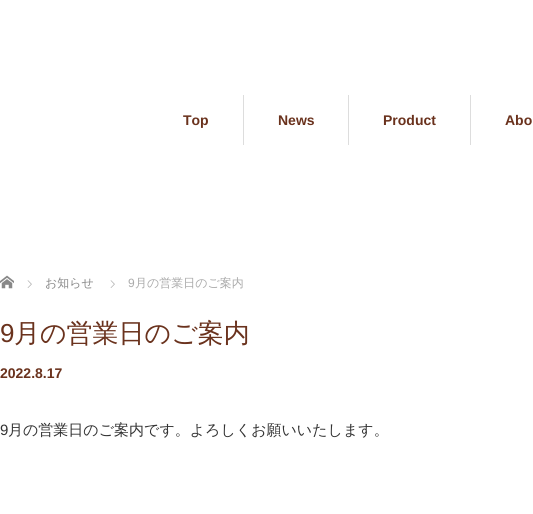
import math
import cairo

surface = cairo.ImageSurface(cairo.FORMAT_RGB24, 533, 514)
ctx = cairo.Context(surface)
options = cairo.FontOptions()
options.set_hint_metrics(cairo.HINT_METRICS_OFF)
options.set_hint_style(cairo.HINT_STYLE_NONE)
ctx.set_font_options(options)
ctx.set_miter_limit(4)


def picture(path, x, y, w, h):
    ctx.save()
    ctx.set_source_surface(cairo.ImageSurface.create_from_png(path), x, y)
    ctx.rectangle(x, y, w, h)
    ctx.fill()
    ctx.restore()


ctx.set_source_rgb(1, 1, 1)
ctx.paint()
ctx.select_font_face("Liberation Sans", cairo.FONT_SLANT_NORMAL, cairo.FONT_WEIGHT_BOLD)
ctx.set_font_size(14)
ctx.set_source_rgb(0.416, 0.196, 0.114)
ctx.move_to(183, 125)
ctx.show_text("Top")
ctx.set_source_rgb(0.867, 0.867, 0.867)
ctx.rectangle(243, 95, 1, 50)
ctx.fill()
ctx.set_source_rgb(0.416, 0.196, 0.114)
ctx.move_to(278, 125)
ctx.show_text("News")
ctx.set_source_rgb(0.867, 0.867, 0.867)
ctx.rectangle(348, 95, 1, 50)
ctx.fill()
ctx.set_source_rgb(0.416, 0.196, 0.114)
ctx.move_to(383, 125)
ctx.show_text("Product")
ctx.set_source_rgb(0.867, 0.867, 0.867)
ctx.rectangle(470, 95, 1, 50)
ctx.fill()
ctx.set_source_rgb(0.416, 0.196, 0.114)
ctx.move_to(505, 125)
ctx.show_text("Abo")
picture("img1.png", 0, 275, 14, 14)
picture("img2.png", 27, 280, 5, 8)
ctx.select_font_face("WenQuanYi Zen Hei Medium")
ctx.set_font_size(12)
ctx.set_source_rgb(0.533, 0.533, 0.533)
ctx.move_to(45, 287)
ctx.show_text("お知らせ")
picture("img2.png", 110, 280, 5, 8)
ctx.select_font_face("Liberation Sans")
ctx.set_source_rgb(0.667, 0.667, 0.667)
ctx.move_to(128, 287)
ctx.show_text("9")
ctx.select_font_face("WenQuanYi Zen Hei Medium")
ctx.move_to(135, 287)
ctx.show_text("月の営業日のご案内")
ctx.select_font_face("Liberation Sans")
ctx.set_font_size(26)
ctx.set_source_rgb(0.416, 0.196, 0.114)
ctx.move_to(0, 342)
ctx.show_text("9")
ctx.select_font_face("WenQuanYi Zen Hei Medium")
ctx.move_to(14, 342)
ctx.show_text("月の営業日のご案内")
ctx.select_font_face("Liberation Sans", cairo.FONT_SLANT_NORMAL, cairo.FONT_WEIGHT_BOLD)
ctx.set_font_size(14)
ctx.move_to(0, 378)
ctx.show_text("2022.8.17")
ctx.select_font_face("Liberation Sans")
ctx.set_font_size(15)
ctx.set_source_rgb(0.2, 0.2, 0.2)
ctx.move_to(0, 435)
ctx.show_text("9")
ctx.select_font_face("WenQuanYi Zen Hei Medium")
ctx.move_to(8, 435)
ctx.show_text("月の営業日のご案内です。よろしくお願いいたします。")
surface.write_to_png("page.png")
